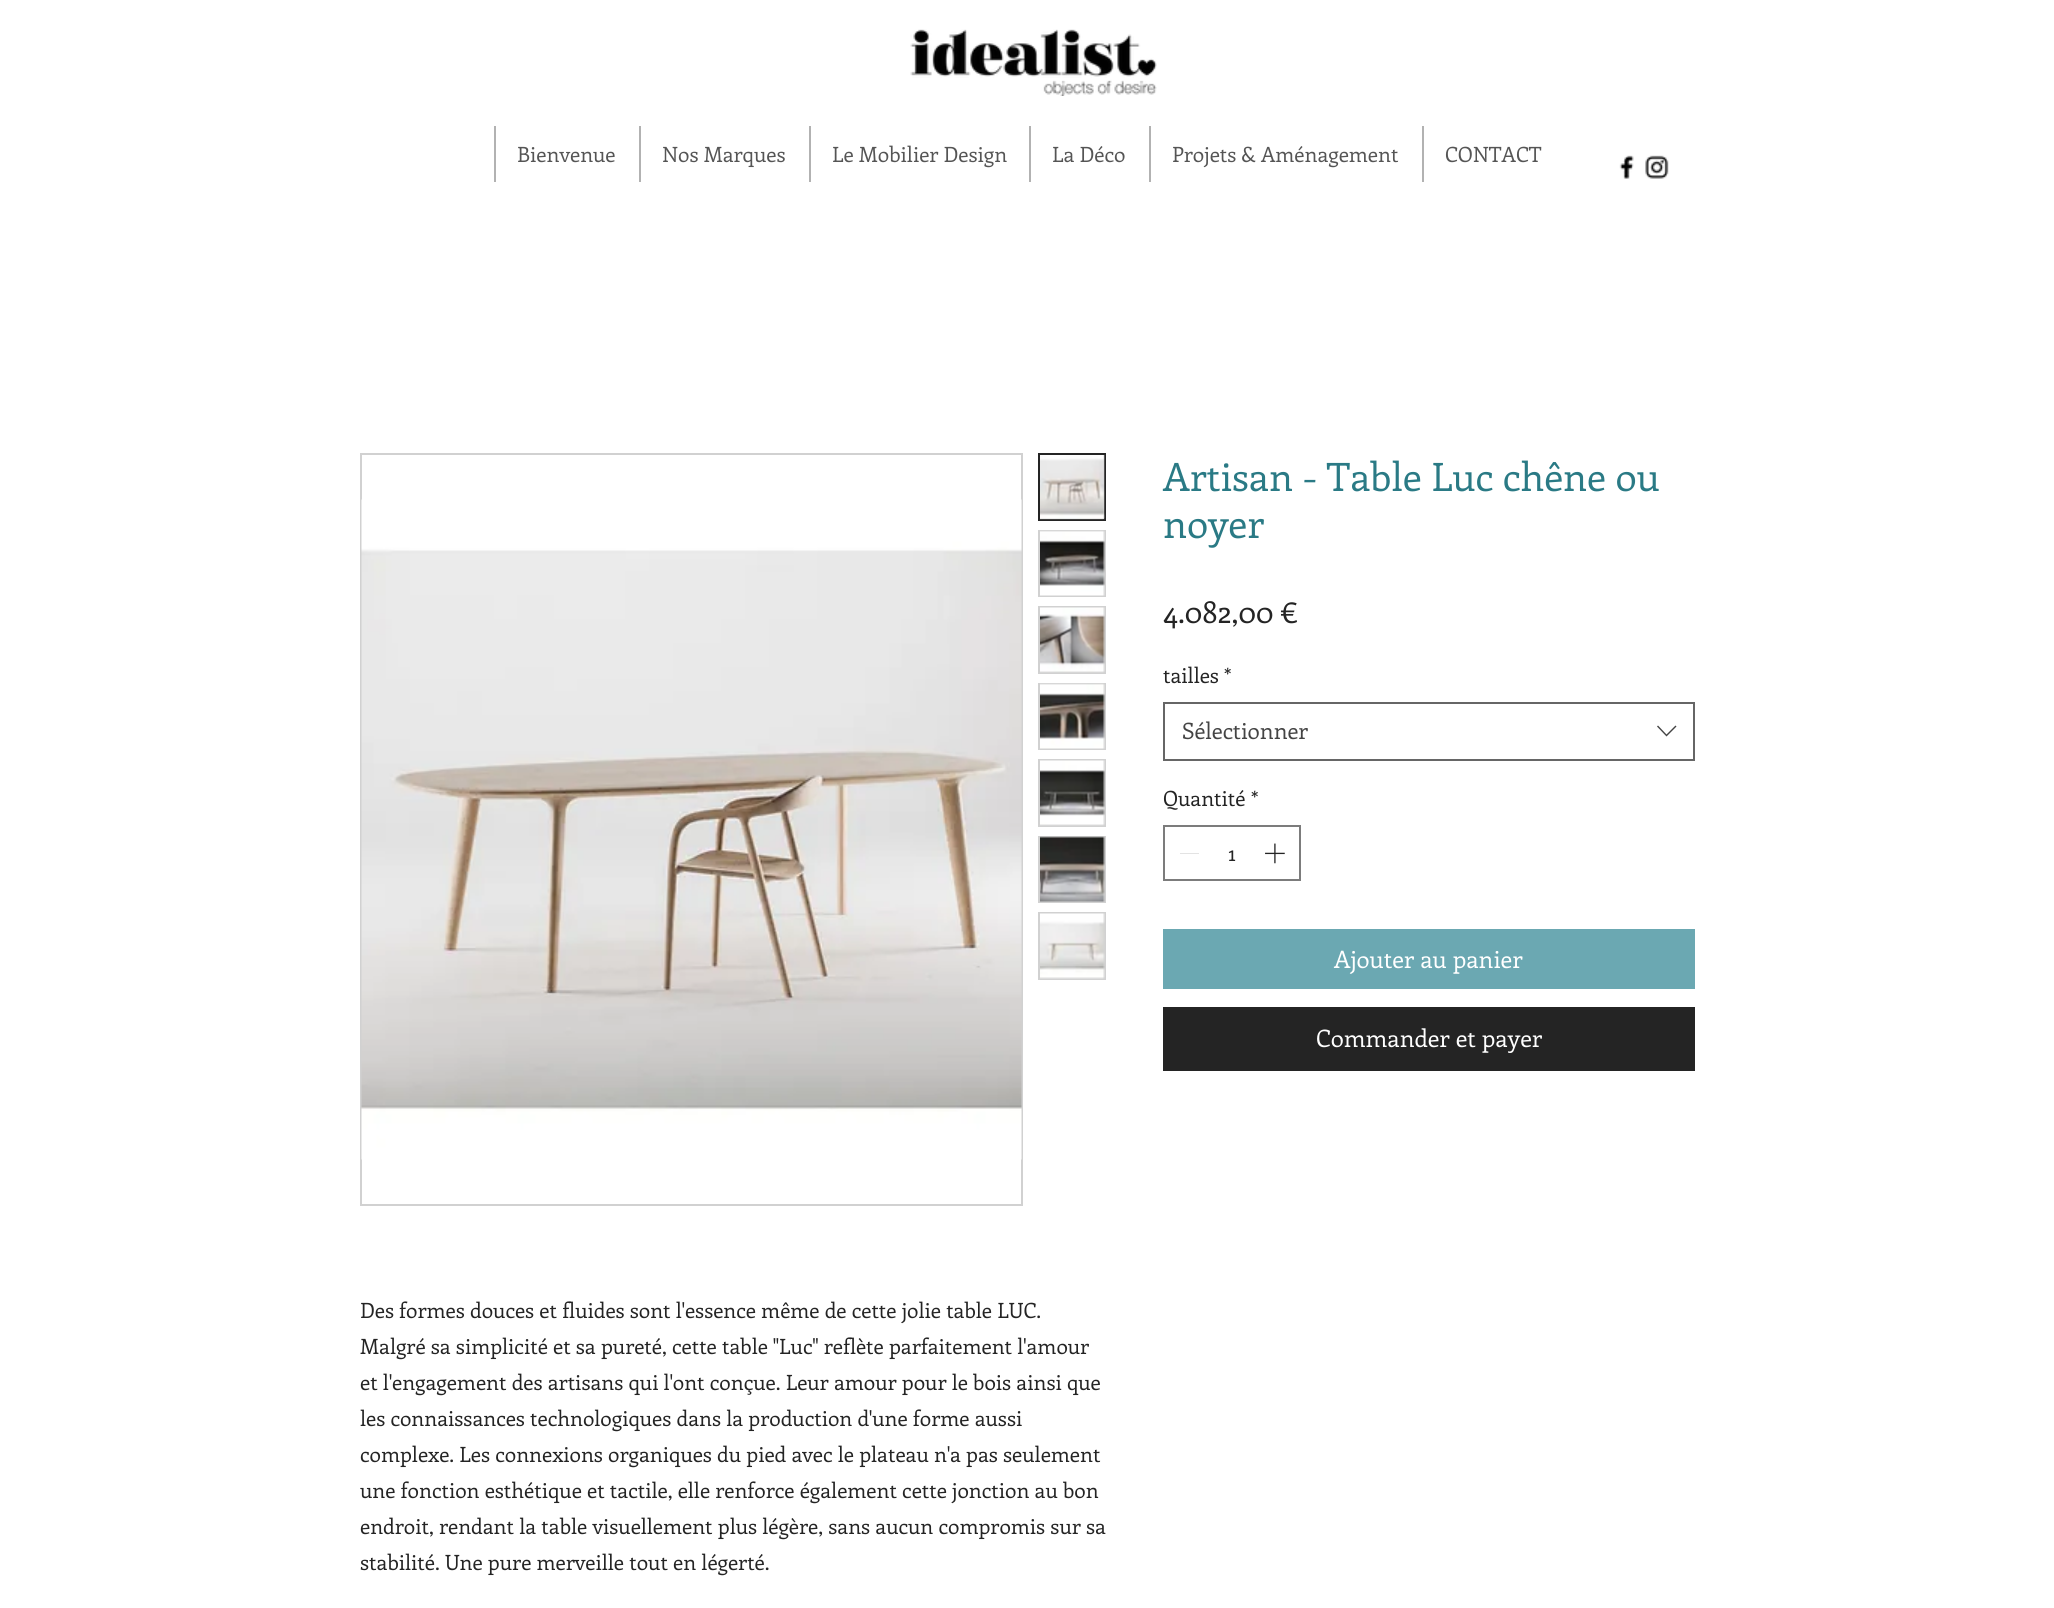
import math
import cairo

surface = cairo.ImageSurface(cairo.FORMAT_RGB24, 2054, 1608)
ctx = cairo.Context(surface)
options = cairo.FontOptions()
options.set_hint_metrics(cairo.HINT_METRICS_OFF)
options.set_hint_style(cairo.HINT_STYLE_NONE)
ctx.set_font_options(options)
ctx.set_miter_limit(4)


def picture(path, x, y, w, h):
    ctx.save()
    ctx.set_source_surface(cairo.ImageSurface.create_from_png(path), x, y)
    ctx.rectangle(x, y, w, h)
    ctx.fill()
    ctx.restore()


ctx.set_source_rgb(1, 1, 1)
ctx.paint()
picture("img1.png", 910, 29, 247, 67)
ctx.set_source_rgb(0.698, 0.698, 0.698)
ctx.rectangle(494, 126, 2, 56)
ctx.fill()
ctx.select_font_face("Enriqueta")
ctx.set_font_size(21)
ctx.set_source_rgb(0.333, 0.333, 0.333)
ctx.move_to(517, 162)
ctx.show_text("Bienvenue")
ctx.set_source_rgb(0.698, 0.698, 0.698)
ctx.rectangle(639, 126, 2, 56)
ctx.fill()
ctx.set_source_rgb(0.333, 0.333, 0.333)
ctx.move_to(662, 162)
ctx.show_text("Nos Marques")
ctx.set_source_rgb(0.698, 0.698, 0.698)
ctx.rectangle(809, 126, 2, 56)
ctx.fill()
ctx.set_source_rgb(0.333, 0.333, 0.333)
ctx.move_to(832, 162)
ctx.show_text("Le Mobilier Design")
ctx.set_source_rgb(0.698, 0.698, 0.698)
ctx.rectangle(1029, 126, 2, 56)
ctx.fill()
ctx.set_source_rgb(0.333, 0.333, 0.333)
ctx.move_to(1052, 162)
ctx.show_text("La Déco")
ctx.set_source_rgb(0.698, 0.698, 0.698)
ctx.rectangle(1149, 126, 2, 56)
ctx.fill()
ctx.set_source_rgb(0.333, 0.333, 0.333)
ctx.move_to(1172, 162)
ctx.show_text("Projets & Aménagement")
ctx.set_source_rgb(0.698, 0.698, 0.698)
ctx.rectangle(1422, 126, 2, 56)
ctx.fill()
ctx.set_source_rgb(0.333, 0.333, 0.333)
ctx.move_to(1445, 162)
ctx.show_text("CONTACT")
picture("img2.png", 1619, 155, 15, 24)
picture("img3.png", 1645, 155, 24, 24)
ctx.set_font_size(39)
ctx.set_source_rgb(0.165, 0.478, 0.522)
ctx.move_to(1163, 491)
ctx.show_text("Artisan - Table Luc chêne ou")
ctx.move_to(1163, 538)
ctx.show_text("noyer")
ctx.set_font_size(30)
ctx.set_source_rgb(0.141, 0.141, 0.141)
ctx.move_to(1163, 623)
ctx.show_text("4.082,00 €")
ctx.set_font_size(21)
ctx.move_to(1163, 683)
ctx.show_text("tailles")
ctx.move_to(1224, 683)
ctx.show_text("*")
ctx.rectangle(1164, 703, 530, 57)
ctx.set_source_rgb(0.4, 0.4, 0.4)
ctx.stroke()
ctx.set_font_size(22.5)
ctx.set_source_rgb(0.267, 0.267, 0.267)
ctx.move_to(1182, 739)
ctx.show_text("Sélectionner")
ctx.set_fill_rule(cairo.FILL_RULE_EVEN_ODD)
ctx.new_path()
ctx.move_to(1675.5, 725.5)
ctx.line_to(1676.5, 726.5)
ctx.line_to(1666.5, 736.5)
ctx.line_to(1657, 726.5)
ctx.line_to(1658, 725.5)
ctx.line_to(1666.5, 734.5)
ctx.close_path()
ctx.fill()
ctx.set_font_size(21)
ctx.set_source_rgb(0.141, 0.141, 0.141)
ctx.move_to(1163, 806)
ctx.show_text("Quantité")
ctx.move_to(1251, 806)
ctx.show_text("*")
ctx.rectangle(1164, 826, 136, 54)
ctx.set_source_rgb(0.486, 0.486, 0.486)
ctx.stroke()
ctx.set_source_rgb(0.89, 0.89, 0.89)
ctx.rectangle(1180, 853, 19, 1)
ctx.fill()
ctx.set_source_rgb(0.141, 0.141, 0.141)
ctx.move_to(1228, 861)
ctx.show_text("1")
picture("img4.png", 1265, 843, 20, 21)
ctx.set_source_rgb(0.42, 0.659, 0.698)
ctx.rectangle(1163, 929, 532, 60)
ctx.fill()
ctx.set_font_size(24)
ctx.set_source_rgb(1, 1, 1)
ctx.move_to(1334, 968)
ctx.show_text("Ajouter au panier")
ctx.set_source_rgb(0.141, 0.141, 0.141)
ctx.rectangle(1163, 1007, 532, 64)
ctx.fill()
ctx.set_source_rgb(1, 1, 1)
ctx.move_to(1316, 1047)
ctx.show_text("Commander et payer")
ctx.rectangle(361, 454, 661, 751)
ctx.set_source_rgb(0.82, 0.82, 0.82)
ctx.stroke()
picture("img5.png", 361, 499, 661, 661)
ctx.rectangle(1039, 454, 66, 66)
ctx.fill_preserve()
ctx.set_source_rgb(0.141, 0.141, 0.141)
ctx.stroke()
picture("img6.png", 1040, 455, 65, 65)
ctx.set_source_rgb(0.82, 0.82, 0.82)
ctx.rectangle(1038, 530, 68, 67)
ctx.fill()
picture("img7.png", 1040, 530, 65, 66)
ctx.rectangle(1038, 606, 68, 68)
ctx.fill()
picture("img8.png", 1040, 607, 65, 66)
ctx.rectangle(1038, 683, 68, 67)
ctx.fill()
picture("img9.png", 1040, 683, 65, 66)
ctx.rectangle(1038, 759, 68, 68)
ctx.fill()
picture("img10.png", 1040, 760, 65, 66)
ctx.rectangle(1038, 836, 68, 67)
ctx.fill()
picture("img11.png", 1040, 836, 65, 66)
ctx.rectangle(1038, 912, 68, 68)
ctx.fill()
picture("img12.png", 1040, 913, 65, 66)
ctx.set_font_size(21)
ctx.set_source_rgb(0.141, 0.141, 0.141)
ctx.move_to(360, 1318)
ctx.show_text("Des formes douces et fluides sont l'essence même de cette jolie table LUC.")
ctx.move_to(360, 1354)
ctx.show_text("Malgré sa simplicité et sa pureté, cette table \"Luc\" reflète parfaitement l'amour")
ctx.move_to(360, 1390)
ctx.show_text("et l'engagement des artisans qui l'ont conçue. Leur amour pour le bois ainsi que")
ctx.move_to(360, 1426)
ctx.show_text("les connaissances technologiques dans la production d'une forme aussi")
ctx.move_to(360, 1462)
ctx.show_text("complexe. Les connexions organiques du pied avec le plateau n'a pas seulement")
ctx.move_to(360, 1498)
ctx.show_text("une fonction esthétique et tactile, elle renforce également cette jonction au bon")
ctx.move_to(360, 1534)
ctx.show_text("endroit, rendant la table visuellement plus légère, sans aucun compromis sur sa")
ctx.move_to(360, 1570)
ctx.show_text("stabilité. Une pure merveille tout en légerté.")
surface.write_to_png("page.png")
